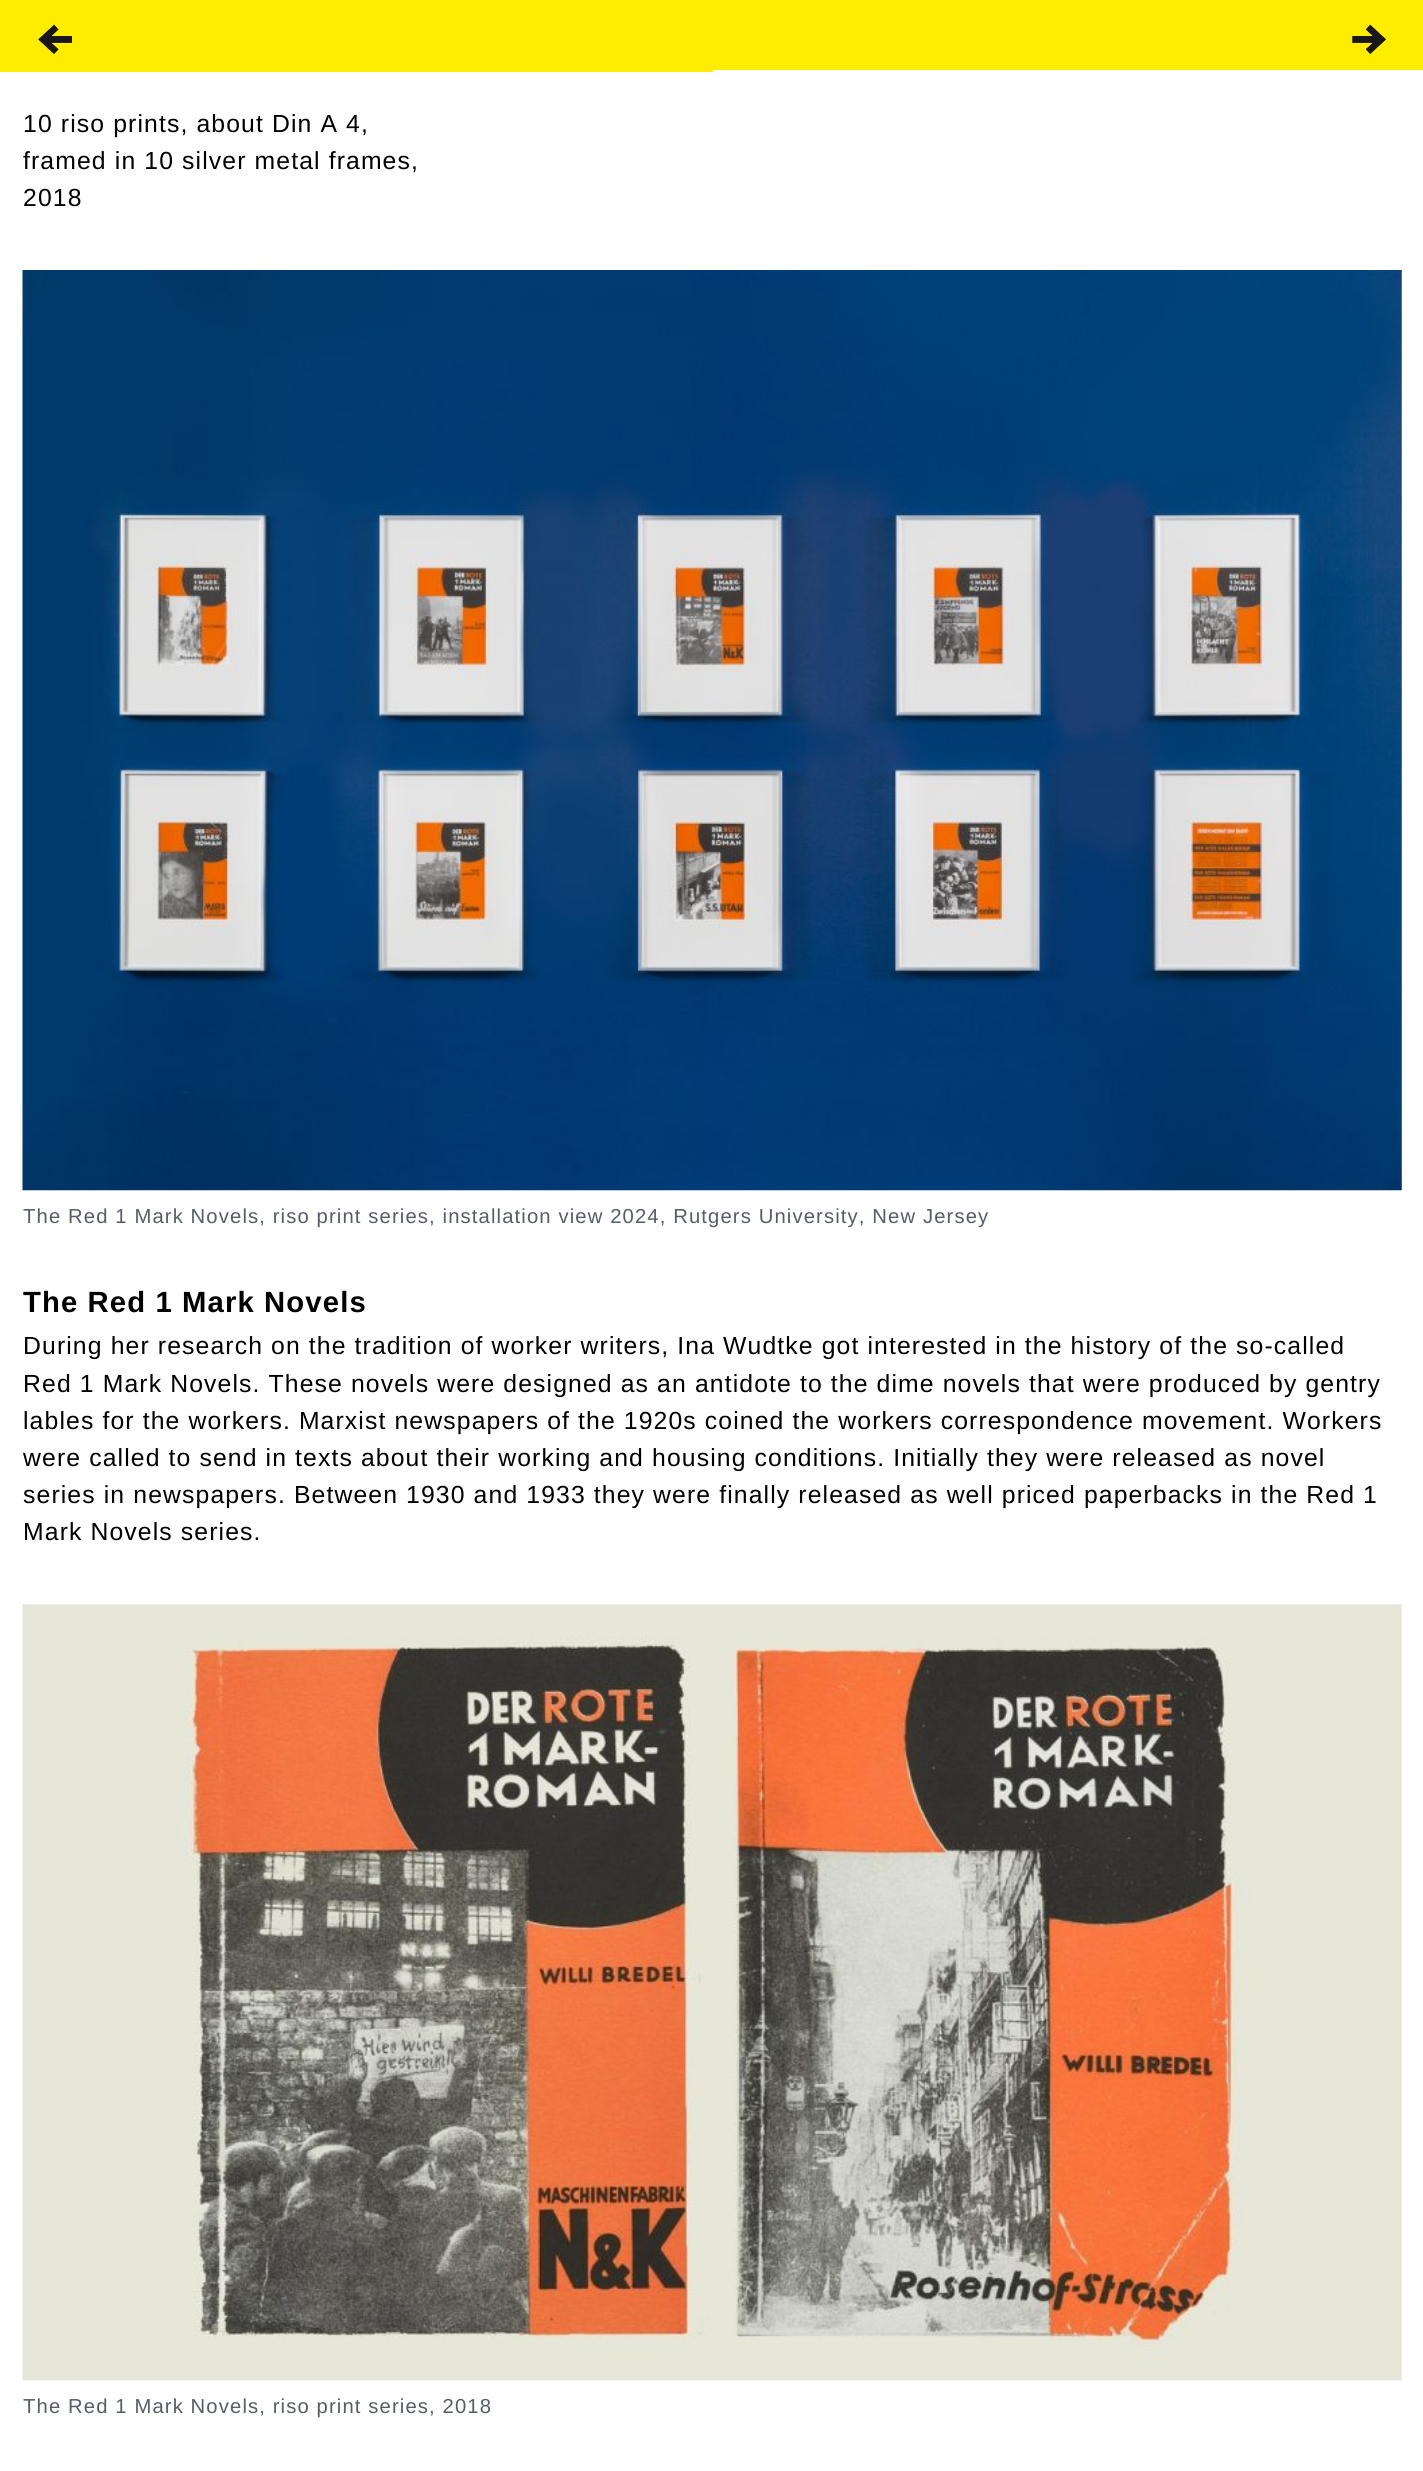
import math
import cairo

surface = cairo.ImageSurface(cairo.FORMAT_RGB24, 1423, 2471)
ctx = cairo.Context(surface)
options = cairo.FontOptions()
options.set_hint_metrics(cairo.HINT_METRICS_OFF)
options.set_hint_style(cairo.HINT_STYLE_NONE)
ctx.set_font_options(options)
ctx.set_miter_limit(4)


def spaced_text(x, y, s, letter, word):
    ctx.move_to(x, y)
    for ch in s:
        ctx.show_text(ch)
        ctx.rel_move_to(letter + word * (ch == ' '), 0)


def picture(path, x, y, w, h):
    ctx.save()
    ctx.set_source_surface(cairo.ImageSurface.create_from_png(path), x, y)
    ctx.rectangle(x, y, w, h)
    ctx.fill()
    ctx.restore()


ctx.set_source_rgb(1, 1, 1)
ctx.paint()
ctx.set_source_rgb(1, 0.929, 0)
ctx.rectangle(0, 0, 713, 72)
ctx.fill()
picture("img1.png", 38, 24, 34, 30)
ctx.rectangle(713, 0, 710, 70)
ctx.fill()
picture("img2.png", 1352, 24, 34, 30)
ctx.select_font_face("Liberation Sans")
ctx.set_font_size(24.75)
ctx.set_source_rgb(0, 0, 0)
spaced_text(23, 132, "10 riso prints, about Din A 4,", 1.12, 0)
spaced_text(23, 169, "framed in 10 silver metal frames,", 1.12, 0)
spaced_text(23, 206, "2018", 1.12, 0)
picture("img3.png", 22, 270, 1380, 921)
ctx.set_font_size(20.25)
ctx.set_source_rgb(0.333, 0.365, 0.4)
spaced_text(23, 1223, "The Red 1 Mark Novels, riso print series, installation view 2024, Rutgers University, New Jersey", 1.12, 0)
ctx.select_font_face("Liberation Sans", cairo.FONT_SLANT_NORMAL, cairo.FONT_WEIGHT_BOLD)
ctx.set_font_size(29.25)
ctx.set_source_rgb(0, 0, 0)
spaced_text(23, 1312, "The Red 1 Mark Novels", 1.12, 0)
ctx.select_font_face("Liberation Sans")
ctx.set_font_size(24.75)
spaced_text(23, 1354, "During her research on the tradition of worker writers, Ina Wudtke got interested in the history of the so-called", 1.12, 0)
spaced_text(23, 1392, "Red 1 Mark Novels. These novels were designed as an antidote to the dime novels that were produced by gentry", 1.12, 0)
spaced_text(23, 1429, "lables for the workers. Marxist newspapers of the 1920s coined the workers correspondence movement. Workers", 1.12, 0)
spaced_text(23, 1466, "were called to send in texts about their working and housing conditions. Initially they were released as novel", 1.12, 0)
spaced_text(23, 1503, "series in newspapers. Between 1930 and 1933 they were finally released as well priced paperbacks in the Red 1", 1.12, 0)
spaced_text(23, 1540, "Mark Novels series.", 1.12, 0)
picture("img4.png", 22, 1604, 1380, 777)
ctx.set_font_size(20.25)
ctx.set_source_rgb(0.333, 0.365, 0.4)
spaced_text(23, 2413, "The Red 1 Mark Novels, riso print series, 2018", 1.12, 0)
surface.write_to_png("page.png")
